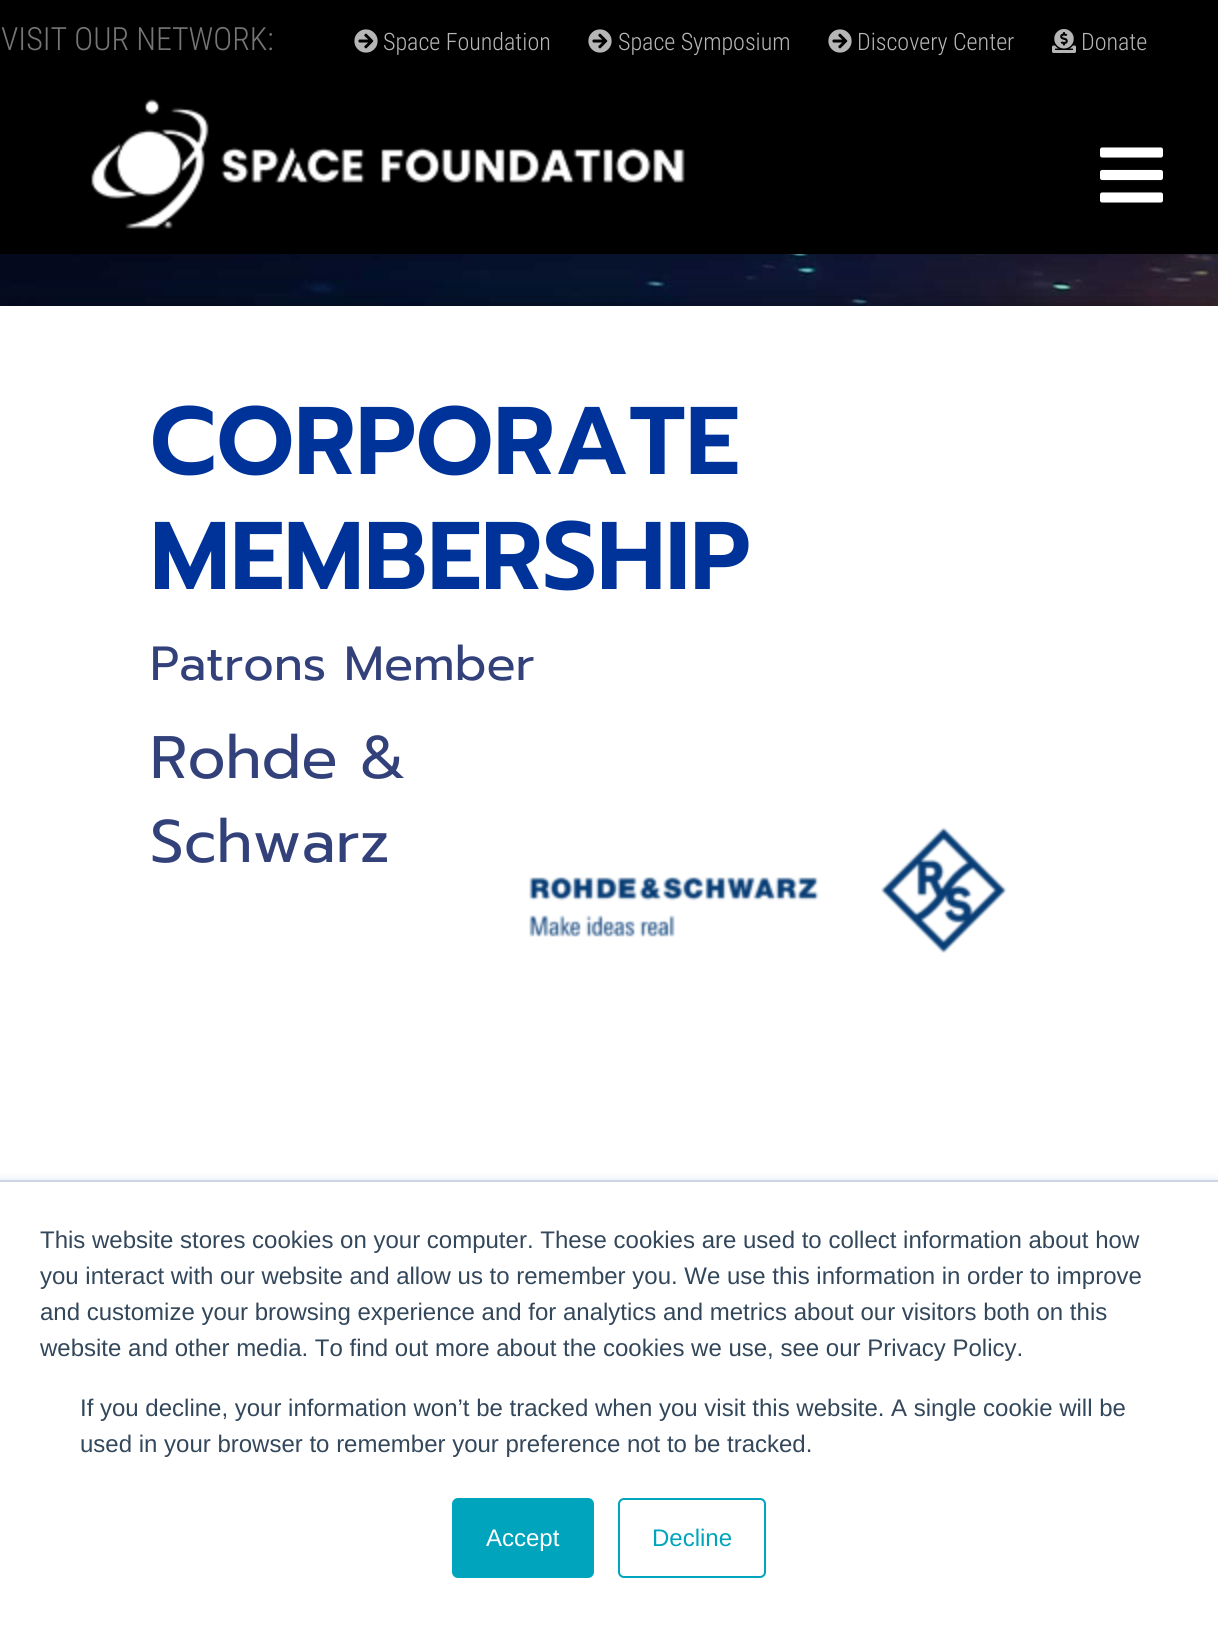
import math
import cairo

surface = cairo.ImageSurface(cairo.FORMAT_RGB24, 1218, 1629)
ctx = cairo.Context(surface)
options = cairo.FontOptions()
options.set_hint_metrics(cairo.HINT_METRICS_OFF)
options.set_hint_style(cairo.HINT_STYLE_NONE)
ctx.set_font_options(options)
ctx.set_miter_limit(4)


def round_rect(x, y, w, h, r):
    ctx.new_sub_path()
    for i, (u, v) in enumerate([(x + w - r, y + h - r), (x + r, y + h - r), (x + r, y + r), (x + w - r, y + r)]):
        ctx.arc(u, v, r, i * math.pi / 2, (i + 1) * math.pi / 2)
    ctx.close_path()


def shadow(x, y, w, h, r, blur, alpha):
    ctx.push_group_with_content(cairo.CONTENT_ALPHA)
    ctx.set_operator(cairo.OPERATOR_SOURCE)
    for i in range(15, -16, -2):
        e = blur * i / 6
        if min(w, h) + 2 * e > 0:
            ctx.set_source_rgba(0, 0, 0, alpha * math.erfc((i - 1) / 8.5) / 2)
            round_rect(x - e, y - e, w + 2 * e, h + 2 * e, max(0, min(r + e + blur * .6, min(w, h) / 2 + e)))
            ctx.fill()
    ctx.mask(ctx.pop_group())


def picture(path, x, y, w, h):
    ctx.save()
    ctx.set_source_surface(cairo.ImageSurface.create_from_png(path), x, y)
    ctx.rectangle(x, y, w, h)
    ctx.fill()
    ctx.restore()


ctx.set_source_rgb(0, 0, 0)
ctx.paint()
ctx.select_font_face("Roboto Condensed Light")
ctx.set_font_size(32)
ctx.set_source_rgb(0.459, 0.459, 0.459)
ctx.move_to(1, 50)
ctx.show_text("VISIT OUR NETWORK:")
picture("img1.png", 354, 29, 24, 24)
ctx.set_font_size(24)
ctx.set_source_rgb(0.714, 0.714, 0.714)
ctx.move_to(383, 50)
ctx.show_text("Space Foundation")
picture("img1.png", 588, 29, 24, 24)
ctx.move_to(618, 50)
ctx.show_text("Space Symposium")
picture("img1.png", 828, 29, 24, 24)
ctx.move_to(857, 50)
ctx.show_text("Discovery Center")
picture("img2.png", 1052, 29, 24, 24)
ctx.move_to(1081, 50)
ctx.show_text("Donate")
picture("img3.png", 91, 99, 594, 130)
picture("img4.png", 1100, 147, 63, 56)
picture("img5.png", 0, 254, 1218, 52)
ctx.set_source_rgb(0, 0, 0)
shadow(0, 306, 1218, 918, 0, 20, 0.6)
ctx.set_source_rgb(1, 1, 1)
ctx.rectangle(0, 306, 1218, 874)
ctx.fill()
ctx.select_font_face("Prompt SemiBold")
ctx.set_font_size(96)
ctx.set_source_rgb(0, 0.2, 0.6)
ctx.move_to(150, 474)
ctx.show_text("CORPORATE")
ctx.move_to(150, 589)
ctx.show_text("MEMBERSHIP")
ctx.select_font_face("Prompt")
ctx.set_font_size(48)
ctx.set_source_rgb(0.2, 0.255, 0.482)
ctx.move_to(150, 680)
ctx.show_text("Patrons Member")
ctx.set_font_size(60)
ctx.move_to(150, 778)
ctx.show_text("Rohde &")
ctx.move_to(150, 862)
ctx.show_text("Schwarz")
picture("img6.png", 529, 827, 478, 126)
ctx.set_source_rgb(0.918, 0.941, 0.965)
shadow(0, 1178, 1218, 450, 0, 3, 1)
ctx.set_source_rgb(1, 1, 1)
ctx.rectangle(0, 1182, 1218, 447)
ctx.fill()
ctx.set_source_rgb(0.796, 0.839, 0.886)
ctx.rectangle(0, 1180, 1218, 2)
ctx.fill()
ctx.select_font_face("Liberation Sans")
ctx.set_font_size(24)
ctx.set_source_rgb(0.2, 0.278, 0.357)
ctx.move_to(40, 1248)
ctx.show_text("This website stores cookies on your computer. These cookies are used to collect information about how")
ctx.move_to(40, 1284)
ctx.show_text("you interact with our website and allow us to remember you. We use this information in order to improve")
ctx.move_to(40, 1320)
ctx.show_text("and customize your browsing experience and for analytics and metrics about our visitors both on this")
ctx.move_to(40, 1356)
ctx.show_text("website and other media. To find out more about the cookies we use, see our Privacy Policy.")
ctx.move_to(80, 1416)
ctx.show_text("If you decline, your information won’t be tracked when you visit this website. A single cookie will be")
ctx.move_to(80, 1452)
ctx.show_text("used in your browser to remember your preference not to be tracked.")
ctx.set_source_rgb(0, 0.643, 0.741)
round_rect(453, 1499, 140, 78, 5)
ctx.fill_preserve()
ctx.stroke()
ctx.set_source_rgb(1, 1, 1)
ctx.move_to(486, 1546)
ctx.show_text("Accept")
round_rect(619, 1499, 146, 78, 5)
ctx.set_source_rgb(0, 0.643, 0.741)
ctx.stroke()
ctx.move_to(652, 1546)
ctx.show_text("Decline")
surface.write_to_png("page.png")
